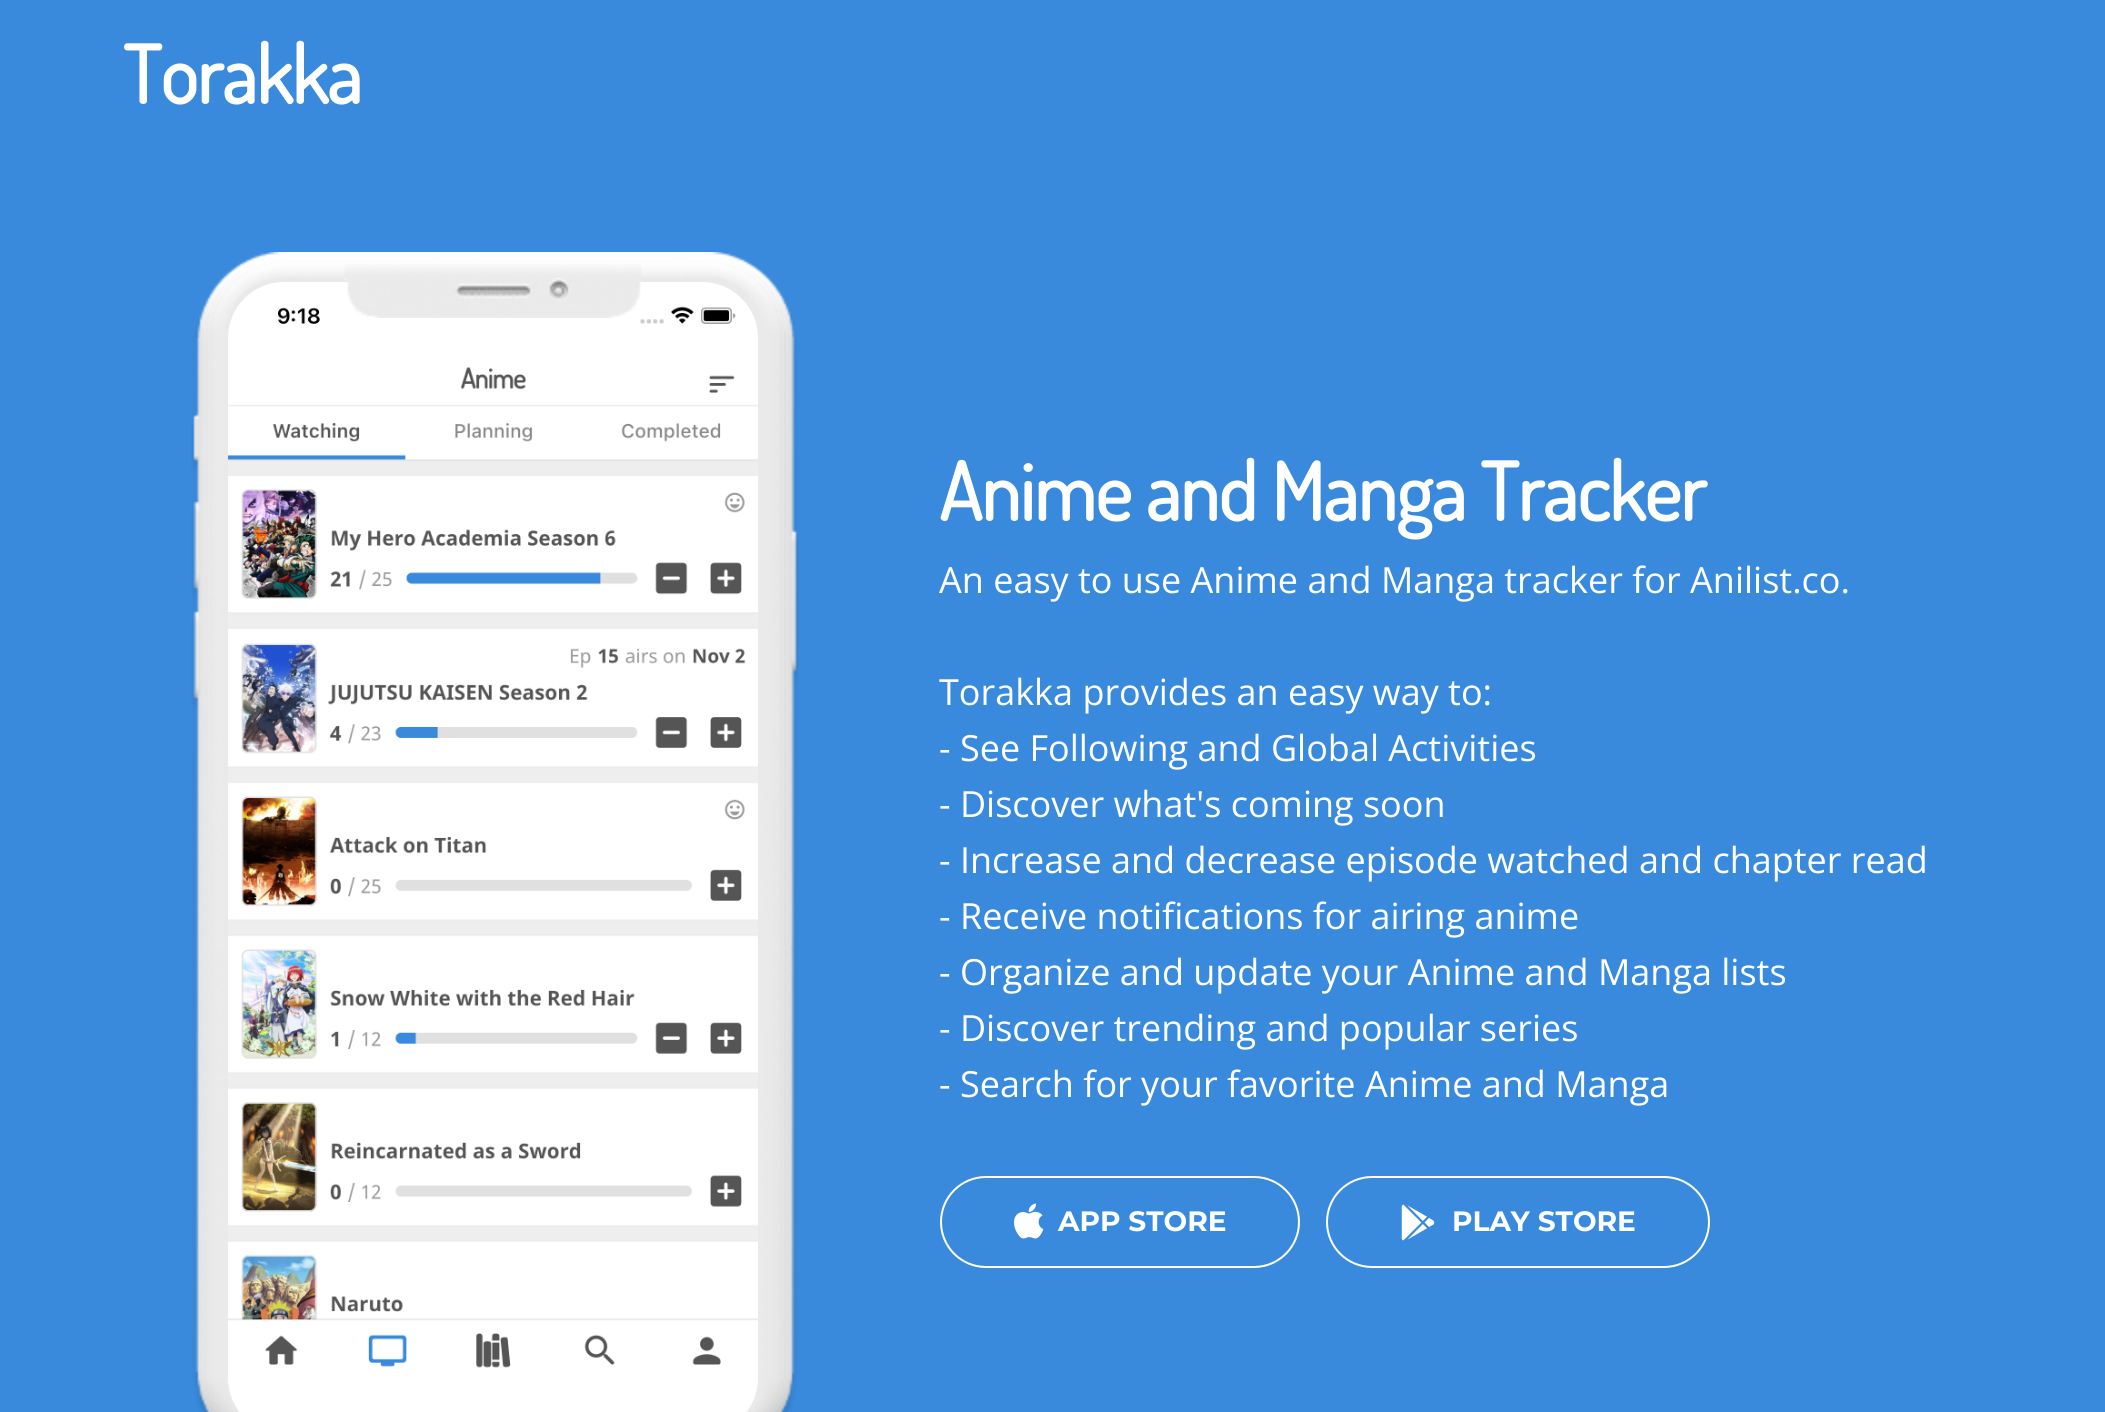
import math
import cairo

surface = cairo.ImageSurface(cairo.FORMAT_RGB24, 2105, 1412)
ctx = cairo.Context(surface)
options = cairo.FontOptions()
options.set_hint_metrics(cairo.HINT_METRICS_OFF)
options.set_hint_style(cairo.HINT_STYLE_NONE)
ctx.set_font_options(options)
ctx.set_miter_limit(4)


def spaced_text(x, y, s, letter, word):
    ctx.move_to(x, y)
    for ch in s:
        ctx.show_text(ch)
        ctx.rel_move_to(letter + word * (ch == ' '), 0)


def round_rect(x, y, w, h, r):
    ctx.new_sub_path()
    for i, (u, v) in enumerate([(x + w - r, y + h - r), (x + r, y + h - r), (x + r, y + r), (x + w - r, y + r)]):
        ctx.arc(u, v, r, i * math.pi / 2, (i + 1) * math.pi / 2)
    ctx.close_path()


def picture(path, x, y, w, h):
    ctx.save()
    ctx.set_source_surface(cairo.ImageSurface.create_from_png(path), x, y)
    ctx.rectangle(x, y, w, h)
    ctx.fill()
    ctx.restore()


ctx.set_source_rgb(0.224, 0.541, 0.867)
ctx.paint()
ctx.select_font_face("Dosis", cairo.FONT_SLANT_NORMAL, cairo.FONT_WEIGHT_BOLD)
ctx.set_font_size(80)
ctx.set_source_rgb(1, 1, 1)
spaced_text(123, 104, "Torakka", -1, 0)
picture("img1.png", 191, 252, 608, 1160)
picture("img3.png", 228, 282, 530, 1130)
picture("img2.png", 344, 264, 298, 54)
spaced_text(939, 521, "Anime and Manga Tracker", -1, 0)
ctx.select_font_face("Open Sans")
ctx.set_font_size(36)
ctx.move_to(939, 593)
ctx.show_text("An easy to use Anime and Manga tracker for Anilist.co.")
ctx.move_to(939, 705)
ctx.show_text("Torakka provides an easy way to:")
ctx.move_to(939, 761)
ctx.show_text("- See Following and Global Activities")
ctx.move_to(939, 817)
ctx.show_text("- Discover what's coming soon")
ctx.move_to(939, 873)
ctx.show_text("- Increase and decrease episode watched and chapter read")
ctx.move_to(939, 929)
ctx.show_text("- Receive notifications for airing anime")
ctx.move_to(939, 985)
ctx.show_text("- Organize and update your Anime and Manga lists")
ctx.move_to(939, 1041)
ctx.show_text("- Discover trending and popular series")
ctx.move_to(939, 1097)
ctx.show_text("- Search for your favorite Anime and Manga")
round_rect(941, 1177, 358, 90, 45)
ctx.stroke()
picture("img4.png", 1014, 1203, 30, 36)
ctx.select_font_face("Montserrat", cairo.FONT_SLANT_NORMAL, cairo.FONT_WEIGHT_BOLD)
ctx.set_font_size(28)
ctx.move_to(1058, 1231)
ctx.show_text("APP STORE")
round_rect(1327, 1177, 382, 90, 45)
ctx.stroke()
picture("img5.png", 1401, 1204, 34, 37)
ctx.move_to(1452, 1231)
ctx.show_text("PLAY STORE")
surface.write_to_png("page.png")
